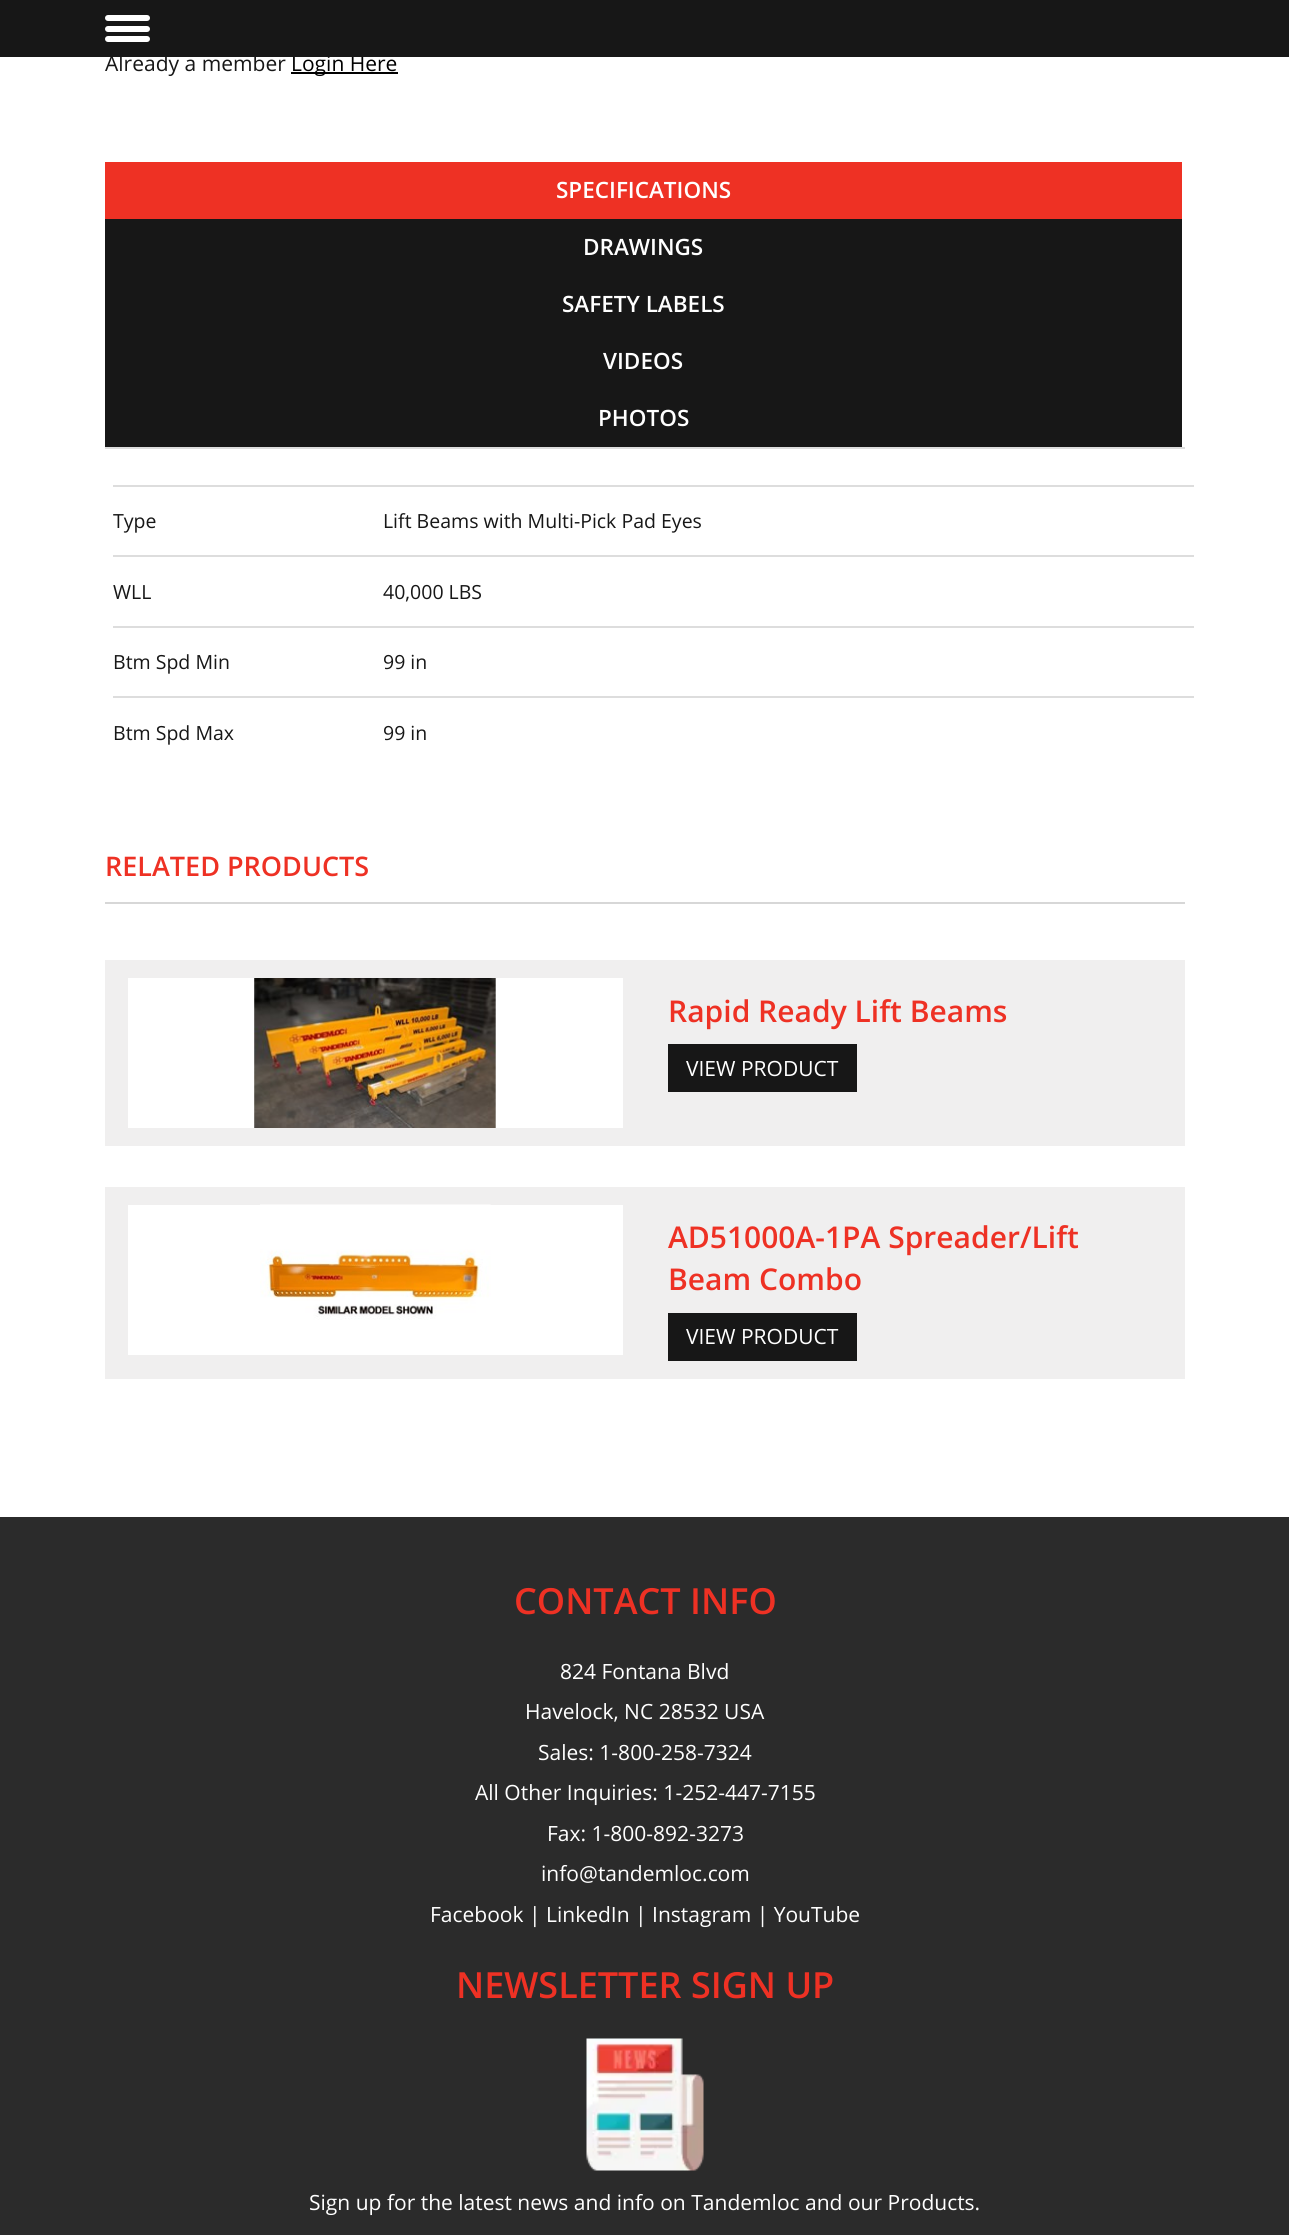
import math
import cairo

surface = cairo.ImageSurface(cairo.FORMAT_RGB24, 1289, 2235)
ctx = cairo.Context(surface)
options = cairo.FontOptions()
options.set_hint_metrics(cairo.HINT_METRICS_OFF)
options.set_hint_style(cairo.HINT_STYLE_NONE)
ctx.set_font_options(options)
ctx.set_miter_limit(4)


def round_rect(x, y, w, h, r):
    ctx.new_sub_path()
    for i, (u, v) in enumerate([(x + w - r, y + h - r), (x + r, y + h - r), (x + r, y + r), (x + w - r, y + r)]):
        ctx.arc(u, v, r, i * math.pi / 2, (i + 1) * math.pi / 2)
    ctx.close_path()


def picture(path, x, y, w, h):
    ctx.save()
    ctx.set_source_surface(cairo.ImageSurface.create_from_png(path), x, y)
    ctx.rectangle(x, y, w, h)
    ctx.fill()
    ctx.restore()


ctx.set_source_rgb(1, 1, 1)
ctx.paint()
ctx.set_source_rgb(0, 0, 0)
ctx.rectangle(291, 72, 107, 2)
ctx.fill()
ctx.select_font_face("Open Sans")
ctx.set_font_size(21)
ctx.move_to(291, 71)
ctx.show_text("Login Here")
ctx.set_source_rgb(0.09, 0.09, 0.09)
ctx.rectangle(0, 0, 1289, 57)
ctx.fill()
ctx.set_source_rgb(1, 1, 1)
round_rect(105, 26, 45, 6, 3)
ctx.fill()
round_rect(105, 15, 45, 6, 3)
ctx.fill()
round_rect(105, 36, 45, 6, 3)
ctx.fill()
ctx.set_source_rgb(0.09, 0.09, 0.09)
ctx.move_to(105, 71)
ctx.show_text("Already a member")
ctx.rectangle(105, 219, 1077, 228)
ctx.fill()
ctx.set_source_rgb(0.867, 0.867, 0.867)
ctx.rectangle(105, 447, 1080, 2)
ctx.fill()
ctx.set_source_rgb(0.933, 0.192, 0.141)
ctx.rectangle(105, 162, 1077, 57)
ctx.fill()
ctx.select_font_face("Open Sans SemiBold")
ctx.set_font_size(22.5)
ctx.set_source_rgb(1, 1, 1)
ctx.move_to(556, 198)
ctx.show_text("SPECIFICATIONS")
ctx.move_to(583, 255)
ctx.show_text("DRAWINGS")
ctx.move_to(562, 312)
ctx.show_text("SAFETY LABELS")
ctx.move_to(603, 369)
ctx.show_text("VIDEOS")
ctx.move_to(598, 426)
ctx.show_text("PHOTOS")
ctx.select_font_face("Open Sans")
ctx.set_font_size(19.5)
ctx.set_source_rgb(0.09, 0.09, 0.09)
ctx.move_to(113, 528)
ctx.show_text("Type")
ctx.set_source_rgb(0.867, 0.867, 0.867)
ctx.rectangle(113, 485, 1081, 2)
ctx.fill()
ctx.set_source_rgb(0.09, 0.09, 0.09)
ctx.move_to(383, 528)
ctx.show_text("Lift Beams with Multi-Pick Pad Eyes")
ctx.move_to(113, 599)
ctx.show_text("WLL")
ctx.set_source_rgb(0.867, 0.867, 0.867)
ctx.rectangle(113, 555, 1081, 2)
ctx.fill()
ctx.set_source_rgb(0.09, 0.09, 0.09)
ctx.move_to(383, 599)
ctx.show_text("40,000 LBS")
ctx.move_to(113, 669)
ctx.show_text("Btm Spd Min")
ctx.set_source_rgb(0.867, 0.867, 0.867)
ctx.rectangle(113, 626, 1081, 2)
ctx.fill()
ctx.set_source_rgb(0.09, 0.09, 0.09)
ctx.move_to(383, 669)
ctx.show_text("99 in")
ctx.move_to(113, 740)
ctx.show_text("Btm Spd Max")
ctx.set_source_rgb(0.867, 0.867, 0.867)
ctx.rectangle(113, 696, 1081, 2)
ctx.fill()
ctx.set_source_rgb(0.09, 0.09, 0.09)
ctx.move_to(383, 740)
ctx.show_text("99 in")
ctx.set_source_rgb(0.843, 0.843, 0.843)
ctx.rectangle(105, 902, 1080, 2)
ctx.fill()
ctx.select_font_face("Open Sans SemiBold")
ctx.set_font_size(27)
ctx.set_source_rgb(0.933, 0.192, 0.141)
ctx.move_to(105, 876)
ctx.show_text("RELATED PRODUCTS")
ctx.set_source_rgb(0.941, 0.937, 0.937)
ctx.rectangle(105, 960, 1080, 186)
ctx.fill()
ctx.set_source_rgb(1, 1, 1)
ctx.rectangle(128, 978, 495, 150)
ctx.fill()
picture("img1.png", 254, 978, 242, 150)
ctx.set_font_size(30)
ctx.set_source_rgb(0.933, 0.192, 0.141)
ctx.move_to(668, 1022)
ctx.show_text("Rapid Ready Lift Beams")
ctx.set_source_rgb(0.09, 0.09, 0.09)
ctx.rectangle(668, 1044, 189, 48)
ctx.fill()
ctx.select_font_face("Open Sans")
ctx.set_font_size(21)
ctx.set_source_rgb(1, 1, 1)
ctx.move_to(686, 1076)
ctx.show_text("VIEW PRODUCT")
ctx.set_source_rgb(0.941, 0.937, 0.937)
ctx.rectangle(105, 1187, 1080, 192)
ctx.fill()
ctx.set_source_rgb(1, 1, 1)
ctx.rectangle(128, 1205, 495, 150)
ctx.fill()
picture("img2.png", 260, 1204, 231, 116)
ctx.select_font_face("Open Sans SemiBold")
ctx.set_font_size(30)
ctx.set_source_rgb(0.933, 0.192, 0.141)
ctx.move_to(668, 1248)
ctx.show_text("AD51000A-1PA Spreader/Lift")
ctx.move_to(668, 1290)
ctx.show_text("Beam Combo")
ctx.set_source_rgb(0.09, 0.09, 0.09)
ctx.rectangle(668, 1313, 189, 48)
ctx.fill()
ctx.select_font_face("Open Sans")
ctx.set_font_size(21)
ctx.set_source_rgb(1, 1, 1)
ctx.move_to(686, 1344)
ctx.show_text("VIEW PRODUCT")
ctx.set_source_rgb(0.169, 0.169, 0.169)
ctx.rectangle(0, 1517, 1289, 718)
ctx.fill()
ctx.select_font_face("Open Sans SemiBold")
ctx.set_font_size(36)
ctx.set_source_rgb(0.933, 0.192, 0.141)
ctx.move_to(514, 1614)
ctx.show_text("CONTACT INFO")
ctx.select_font_face("Open Sans")
ctx.set_font_size(21)
ctx.set_source_rgb(1, 1, 1)
ctx.move_to(560, 1679)
ctx.show_text("824 Fontana Blvd")
ctx.move_to(525, 1719)
ctx.show_text("Havelock, NC 28532 USA")
ctx.move_to(538, 1760)
ctx.show_text("Sales: 1-800-258-7324")
ctx.move_to(475, 1800)
ctx.show_text("All Other Inquiries: 1-252-447-7155")
ctx.move_to(547, 1841)
ctx.show_text("Fax: 1-800-892-3273")
ctx.move_to(541, 1881)
ctx.show_text("info@tandemloc.com")
ctx.move_to(430, 1922)
ctx.show_text("Facebook | LinkedIn | Instagram | YouTube")
ctx.select_font_face("Open Sans SemiBold")
ctx.set_font_size(36)
ctx.set_source_rgb(0.933, 0.192, 0.141)
ctx.move_to(456, 1998)
ctx.show_text("NEWSLETTER SIGN UP")
picture("img3.png", 586, 2038, 118, 133)
ctx.select_font_face("Open Sans")
ctx.set_font_size(21)
ctx.set_source_rgb(1, 1, 1)
ctx.move_to(309, 2210)
ctx.show_text("Sign up for the latest news and info on Tandemloc and our Products.")
surface.write_to_png("page.png")
